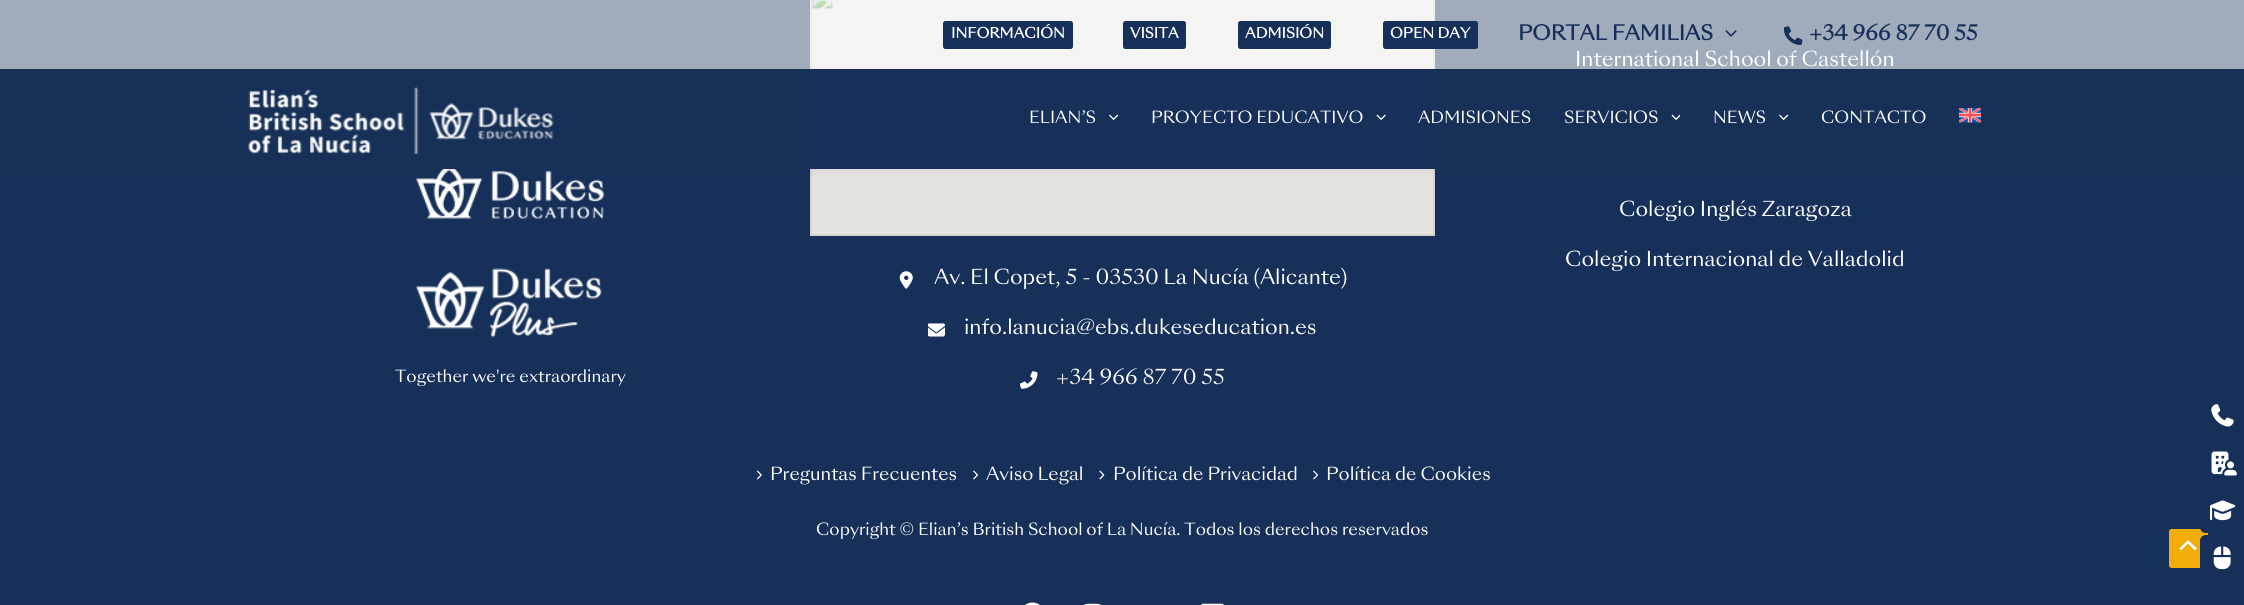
import math
import cairo

surface = cairo.ImageSurface(cairo.FORMAT_RGB24, 2244, 605)
ctx = cairo.Context(surface)
options = cairo.FontOptions()
options.set_hint_metrics(cairo.HINT_METRICS_OFF)
options.set_hint_style(cairo.HINT_STYLE_NONE)
ctx.set_font_options(options)
ctx.set_miter_limit(4)


def round_rect(x, y, w, h, r):
    ctx.new_sub_path()
    for i, (u, v) in enumerate([(x + w - r, y + h - r), (x + r, y + h - r), (x + r, y + r), (x + w - r, y + r)]):
        ctx.arc(u, v, r, i * math.pi / 2, (i + 1) * math.pi / 2)
    ctx.close_path()


def shadow(x, y, w, h, r, blur, alpha):
    ctx.push_group_with_content(cairo.CONTENT_ALPHA)
    ctx.set_operator(cairo.OPERATOR_SOURCE)
    for i in range(15, -16, -2):
        e = blur * i / 6
        if min(w, h) + 2 * e > 0:
            ctx.set_source_rgba(0, 0, 0, alpha * math.erfc((i - 1) / 8.5) / 2)
            round_rect(x - e, y - e, w + 2 * e, h + 2 * e, max(0, min(r + e + blur * .6, min(w, h) / 2 + e)))
            ctx.fill()
    ctx.mask(ctx.pop_group())


def picture(path, x, y, w, h):
    ctx.save()
    ctx.set_source_surface(cairo.ImageSurface.create_from_png(path), x, y)
    ctx.rectangle(x, y, w, h)
    ctx.fill()
    ctx.restore()


ctx.set_source_rgb(0.086, 0.188, 0.349)
ctx.paint()
picture("img8.png", 416, 169, 188, 50)
picture("img10.png", 810, 0, 625, 236)
ctx.set_source_rgb(0.141, 0.196, 0.259)
shadow(0, 71, 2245, 100, 0, 6, 0.07)
ctx.select_font_face("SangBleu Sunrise")
ctx.set_font_size(20)
ctx.set_source_rgb(1, 1, 1)
ctx.move_to(1575, 66)
ctx.show_text("International School of Castellón")
ctx.set_source_rgba(1, 1, 1, 0.59)
ctx.rectangle(0, 0, 2244, 69)
ctx.fill()
ctx.set_source_rgb(0.086, 0.188, 0.349)
round_rect(943, 21, 130, 28, 2.5)
ctx.fill()
ctx.select_font_face("SangBleu Sunrise", cairo.FONT_SLANT_NORMAL, cairo.FONT_WEIGHT_BOLD)
ctx.set_font_size(14)
ctx.set_source_rgb(1, 1, 1)
ctx.move_to(951, 38)
ctx.show_text("INFORMACIÓN")
ctx.set_source_rgb(0.086, 0.188, 0.349)
round_rect(1123, 21, 63, 28, 2.5)
ctx.fill()
ctx.set_source_rgb(1, 1, 1)
ctx.move_to(1130, 38)
ctx.show_text("VISITA")
ctx.set_source_rgb(0.086, 0.188, 0.349)
round_rect(1238, 21, 93, 28, 2.5)
ctx.fill()
ctx.set_source_rgb(1, 1, 1)
ctx.move_to(1245, 38)
ctx.show_text("ADMISIÓN")
ctx.set_source_rgb(0.086, 0.188, 0.349)
round_rect(1383, 21, 95, 28, 2.5)
ctx.fill()
ctx.set_source_rgb(1, 1, 1)
ctx.move_to(1390, 38)
ctx.show_text("OPEN DAY")
ctx.set_font_size(20)
ctx.set_source_rgb(0.086, 0.188, 0.349)
ctx.move_to(1518, 40)
ctx.show_text("PORTAL FAMILIAS")
picture("img1.png", 1725, 30, 12, 7)
picture("img2.png", 1784, 26, 19, 19)
ctx.move_to(1809, 40)
ctx.show_text("+34 966 87 70 55")
ctx.rectangle(810, 69, 625, 100)
ctx.fill()
picture("img3.png", 248, 87, 306, 67)
ctx.select_font_face("SangBleu Sunrise")
ctx.set_font_size(16.25)
ctx.set_source_rgb(1, 1, 1)
ctx.move_to(1029, 123)
ctx.show_text("ELIAN’S")
picture("img4.png", 1109, 114, 10, 7)
ctx.move_to(1151, 123)
ctx.show_text("PROYECTO EDUCATIVO")
picture("img5.png", 1376, 114, 10, 7)
ctx.move_to(1418, 123)
ctx.show_text("ADMISIONES")
ctx.move_to(1564, 123)
ctx.show_text("SERVICIOS")
picture("img6.png", 1671, 114, 9, 7)
ctx.move_to(1713, 123)
ctx.show_text("NEWS")
picture("img4.png", 1779, 114, 10, 7)
ctx.move_to(1821, 123)
ctx.show_text("CONTACTO")
picture("img7.png", 1959, 108, 22, 15)
ctx.set_font_size(20)
ctx.move_to(1619, 216)
ctx.show_text("Colegio Inglés Zaragoza")
ctx.move_to(1565, 266)
ctx.show_text("Colegio Internacional de Valladolid")
picture("img9.png", 416, 268, 186, 70)
ctx.set_font_size(16.25)
ctx.move_to(395, 382)
ctx.show_text("Together we're extraordinary")
picture("img11.png", 899, 271, 14, 18)
ctx.set_font_size(20)
ctx.move_to(934, 284)
ctx.show_text("Av. El Copet, 5 - 03530 La Nucía (Alicante)")
picture("img12.png", 928, 323, 17, 14)
ctx.move_to(964, 334)
ctx.show_text("info.lanucia@ebs.dukeseducation.es")
picture("img13.png", 1020, 371, 18, 18)
ctx.move_to(1056, 384)
ctx.show_text("+34 966 87 70 55")
picture("img14.png", 756, 470, 6, 10)
ctx.set_font_size(17.5)
ctx.move_to(770, 480)
ctx.show_text("Preguntas Frecuentes")
picture("img15.png", 973, 470, 5, 10)
ctx.move_to(986, 480)
ctx.show_text("Aviso Legal")
picture("img16.png", 1099, 470, 6, 10)
ctx.move_to(1113, 480)
ctx.show_text("Política de Privacidad")
picture("img15.png", 1313, 470, 5, 10)
ctx.move_to(1326, 480)
ctx.show_text("Política de Cookies")
ctx.set_font_size(16.25)
ctx.move_to(816, 535)
ctx.show_text("Copyright © Elian’s British School of La Nucía. Todos los derechos reservados")
picture("img17.png", 1025, 602, 15, 3)
picture("img18.png", 1084, 603, 17, 2)
picture("img19.png", 1201, 603, 23, 2)
ctx.set_source_rgb(0.949, 0.678, 0.051)
round_rect(2169, 529, 39, 39, 2.5)
ctx.fill()
ctx.save()
ctx.rectangle(2173, 539, 30, 11)
ctx.clip()
ctx.set_source_rgb(1, 1, 1)
ctx.new_path()
ctx.move_to(2197, 548.5)
ctx.line_to(2188, 540)
ctx.line_to(2179.5, 548.5)
ctx.line_to(2181, 550.5)
ctx.line_to(2188, 543.5)
ctx.line_to(2195, 550.5)
ctx.close_path()
ctx.fill()
ctx.restore()
picture("img20.png", 2211, 404, 23, 23)
picture("img21.png", 2211, 451, 26, 25)
ctx.set_source_rgb(0.086, 0.188, 0.349)
ctx.new_path()
ctx.move_to(2206, 488)
ctx.line_to(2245, 488)
ctx.line_to(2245, 533)
ctx.line_to(2206, 533)
ctx.curve_to(2202.5, 533, 2200, 530.5, 2200, 527)
ctx.line_to(2200, 494)
ctx.curve_to(2200, 490.5, 2202.5, 488, 2206, 488)
ctx.close_path()
ctx.fill()
picture("img22.png", 2210, 500, 26, 21)
ctx.new_path()
ctx.move_to(2206, 535)
ctx.line_to(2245, 535)
ctx.line_to(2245, 580)
ctx.line_to(2206, 580)
ctx.curve_to(2202.5, 580, 2200, 577.5, 2200, 574)
ctx.line_to(2200, 541)
ctx.curve_to(2200, 537.5, 2202.5, 535, 2206, 535)
ctx.close_path()
ctx.fill()
picture("img23.png", 2213, 546, 18, 24)
surface.write_to_png("page.png")
